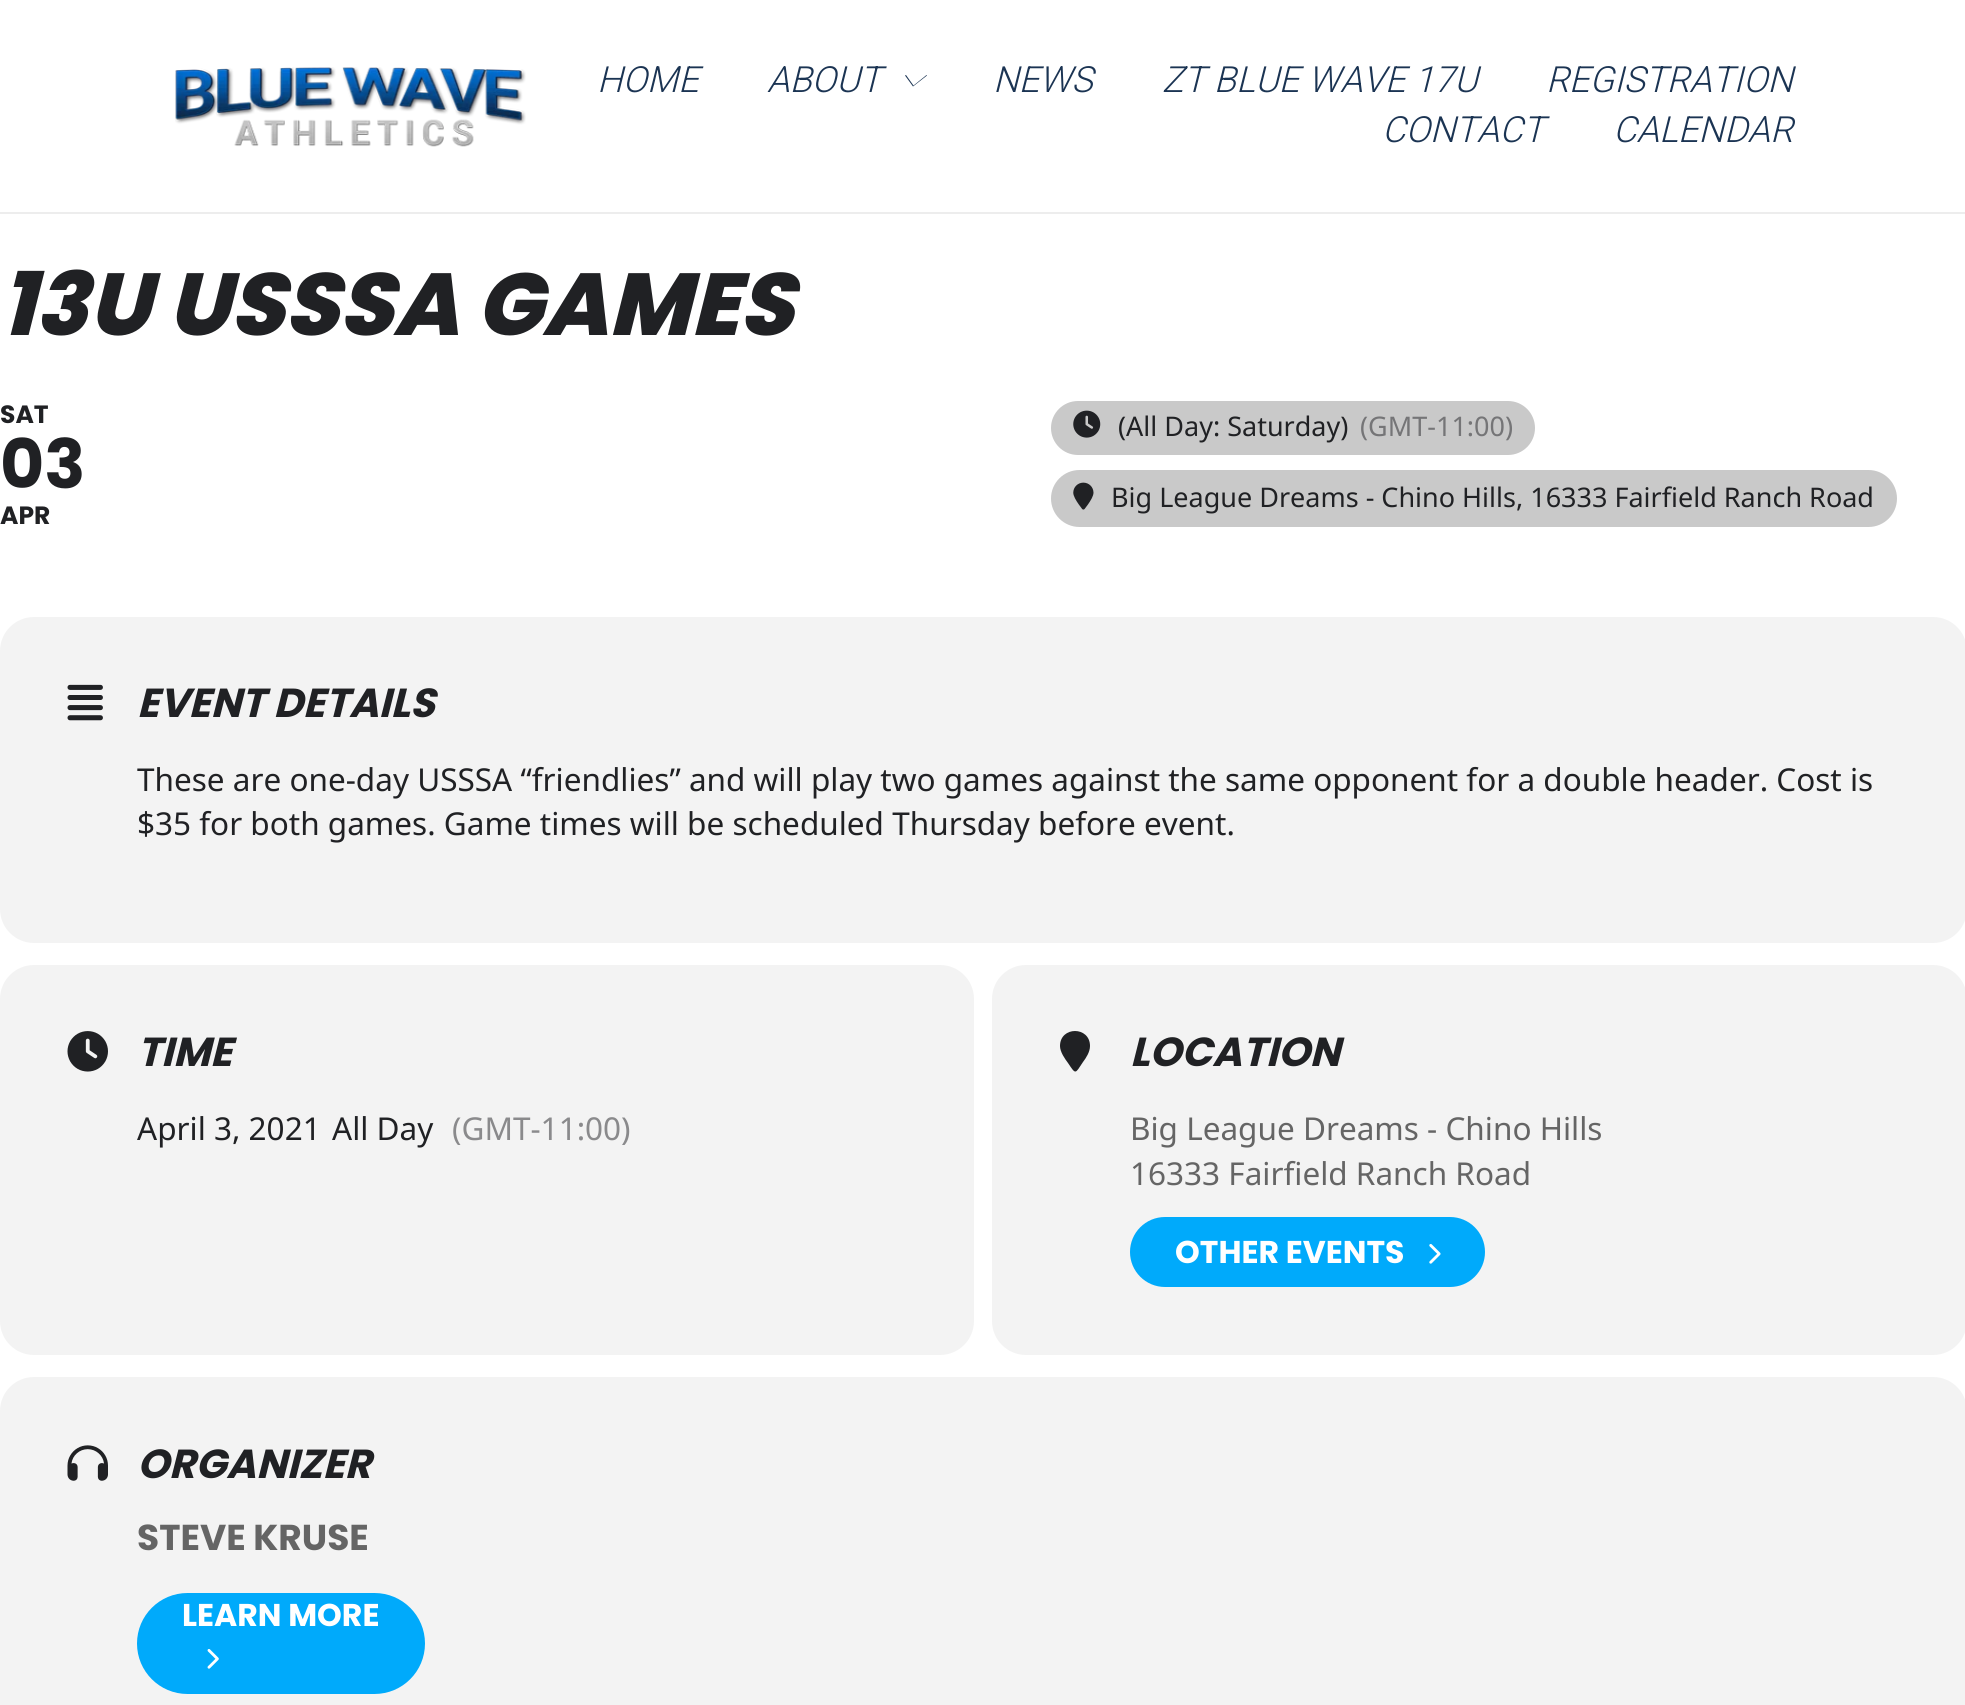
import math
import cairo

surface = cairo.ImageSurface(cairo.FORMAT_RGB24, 1965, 1705)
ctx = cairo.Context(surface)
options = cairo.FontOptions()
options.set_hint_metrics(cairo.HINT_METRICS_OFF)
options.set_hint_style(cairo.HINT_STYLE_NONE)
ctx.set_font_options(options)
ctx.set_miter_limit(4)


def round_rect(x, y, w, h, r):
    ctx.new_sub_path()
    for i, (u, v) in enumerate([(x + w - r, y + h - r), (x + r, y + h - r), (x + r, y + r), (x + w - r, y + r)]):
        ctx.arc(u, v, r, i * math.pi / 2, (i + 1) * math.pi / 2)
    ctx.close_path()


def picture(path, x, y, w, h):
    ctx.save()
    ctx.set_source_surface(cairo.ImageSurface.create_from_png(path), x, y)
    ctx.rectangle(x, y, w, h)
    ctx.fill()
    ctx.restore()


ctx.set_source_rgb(1, 1, 1)
ctx.paint()
ctx.set_source_rgb(0.929, 0.929, 0.929)
ctx.rectangle(0, 212, 1965, 2)
ctx.fill()
picture("img1.png", 175, 67, 351, 80)
ctx.select_font_face("Roboto Light", cairo.FONT_SLANT_ITALIC)
ctx.set_font_size(36)
ctx.set_source_rgb(0.106, 0.204, 0.325)
ctx.move_to(597, 92)
ctx.show_text("HOME")
ctx.move_to(767, 92)
ctx.show_text("ABOUT")
ctx.new_path()
ctx.move_to(913, 86.5)
ctx.line_to(905, 75.5)
ctx.line_to(906, 75)
ctx.line_to(913.5, 85.5)
ctx.line_to(926.5, 75)
ctx.line_to(927, 75.5)
ctx.close_path()
ctx.fill()
ctx.move_to(993, 92)
ctx.show_text("NEWS")
ctx.move_to(1162, 92)
ctx.show_text("ZT BLUE WAVE 17U")
ctx.move_to(1546, 92)
ctx.show_text("REGISTRATION")
ctx.move_to(1382, 142)
ctx.show_text("CONTACT")
ctx.move_to(1613, 142)
ctx.show_text("CALENDAR")
ctx.select_font_face("Poppins ExtraBold", cairo.FONT_SLANT_ITALIC)
ctx.set_font_size(87.75)
ctx.set_source_rgb(0.125, 0.129, 0.141)
ctx.move_to(0, 335)
ctx.show_text("13U USSSA GAMES")
ctx.select_font_face("Poppins", cairo.FONT_SLANT_NORMAL, cairo.FONT_WEIGHT_BOLD)
ctx.set_font_size(25)
ctx.move_to(0, 423)
ctx.show_text("SAT")
ctx.set_font_size(68)
ctx.move_to(0, 488)
ctx.show_text("03")
ctx.set_font_size(25)
ctx.move_to(0, 524)
ctx.show_text("APR")
ctx.set_source_rgb(0.788, 0.788, 0.788)
round_rect(1051, 401, 484, 54, 27)
ctx.fill()
picture("img2.png", 1073, 410, 28, 28)
ctx.select_font_face("Noto Sans")
ctx.set_font_size(27)
ctx.set_source_rgb(0.125, 0.129, 0.141)
ctx.move_to(1118, 436)
ctx.show_text("(All Day: Saturday)")
ctx.set_source_rgb(0.459, 0.459, 0.467)
ctx.move_to(1360, 436)
ctx.show_text("(GMT-11:00)")
ctx.set_source_rgb(0.788, 0.788, 0.788)
round_rect(1051, 470, 846, 57, 28.5)
ctx.fill()
picture("img3.png", 1073, 482, 21, 28)
ctx.set_source_rgb(0.125, 0.129, 0.141)
ctx.move_to(1111, 507)
ctx.show_text("Big League Dreams - Chino Hills, 16333 Fairfield Ranch Road")
ctx.set_source_rgb(0.953, 0.953, 0.953)
round_rect(0, 617, 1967, 326, 34)
ctx.fill()
picture("img4.png", 67, 684, 36, 37)
ctx.select_font_face("Poppins", cairo.FONT_SLANT_ITALIC, cairo.FONT_WEIGHT_BOLD)
ctx.set_font_size(40.5)
ctx.set_source_rgb(0.125, 0.129, 0.141)
ctx.move_to(137, 717)
ctx.show_text("EVENT DETAILS")
ctx.select_font_face("Noto Sans")
ctx.set_font_size(31.5)
ctx.move_to(137, 791)
ctx.show_text("These are one-day USSSA “friendlies” and will play two games against the same opponent for a double header. Cost is")
ctx.move_to(137, 835)
ctx.show_text("$35 for both games. Game times will be scheduled Thursday before event.")
ctx.set_source_rgb(0.953, 0.953, 0.953)
round_rect(0, 965, 974, 390, 34)
ctx.fill()
picture("img5.png", 67, 1031, 41, 41)
ctx.select_font_face("Poppins", cairo.FONT_SLANT_ITALIC, cairo.FONT_WEIGHT_BOLD)
ctx.set_font_size(40.5)
ctx.set_source_rgb(0.125, 0.129, 0.141)
ctx.move_to(137, 1066)
ctx.show_text("TIME")
ctx.select_font_face("Noto Sans")
ctx.set_font_size(31.5)
ctx.move_to(137, 1140)
ctx.show_text("April 3, 2021")
ctx.move_to(332, 1140)
ctx.show_text("All Day")
ctx.set_source_rgb(0.541, 0.541, 0.549)
ctx.move_to(452, 1140)
ctx.show_text("(GMT-11:00)")
ctx.set_source_rgb(0.953, 0.953, 0.953)
round_rect(992, 965, 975, 390, 34)
ctx.fill()
ctx.set_source_rgb(0.125, 0.129, 0.141)
ctx.new_path()
ctx.move_to(1090, 1046)
ctx.curve_to(1090, 1052, 1086, 1058, 1083, 1062)
ctx.curve_to(1075, 1074, 1076, 1075, 1068, 1063)
ctx.curve_to(1065, 1059, 1060, 1052, 1060, 1046)
ctx.curve_to(1060, 1026, 1090, 1026, 1090, 1046)
ctx.close_path()
ctx.fill()
ctx.select_font_face("Poppins", cairo.FONT_SLANT_ITALIC, cairo.FONT_WEIGHT_BOLD)
ctx.set_font_size(40.5)
ctx.move_to(1130, 1066)
ctx.show_text("LOCATION")
ctx.select_font_face("Noto Sans")
ctx.set_font_size(31.5)
ctx.set_source_rgb(0.396, 0.396, 0.396)
ctx.move_to(1130, 1140)
ctx.show_text("Big League Dreams - Chino Hills")
ctx.move_to(1130, 1185)
ctx.show_text("16333 Fairfield Ranch Road")
ctx.set_source_rgb(0, 0.667, 0.984)
round_rect(1130, 1217, 355, 70, 35)
ctx.fill()
ctx.select_font_face("Poppins", cairo.FONT_SLANT_NORMAL, cairo.FONT_WEIGHT_BOLD)
ctx.set_source_rgb(1, 1, 1)
ctx.move_to(1175, 1263)
ctx.show_text("OTHER EVENTS")
picture("img6.png", 1429, 1244, 12, 20)
ctx.set_source_rgb(0.953, 0.953, 0.953)
round_rect(0, 1377, 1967, 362, 34)
ctx.fill()
picture("img7.png", 67, 1445, 41, 36)
ctx.select_font_face("Poppins", cairo.FONT_SLANT_ITALIC, cairo.FONT_WEIGHT_BOLD)
ctx.set_font_size(40.5)
ctx.set_source_rgb(0.125, 0.129, 0.141)
ctx.move_to(137, 1478)
ctx.show_text("ORGANIZER")
ctx.select_font_face("Poppins", cairo.FONT_SLANT_NORMAL, cairo.FONT_WEIGHT_BOLD)
ctx.set_font_size(36)
ctx.set_source_rgb(0.396, 0.396, 0.396)
ctx.move_to(137, 1550)
ctx.show_text("STEVE KRUSE")
ctx.set_source_rgb(0, 0.667, 0.984)
round_rect(137, 1593, 288, 101, 50.5)
ctx.fill()
ctx.set_font_size(31.5)
ctx.set_source_rgb(1, 1, 1)
ctx.move_to(182, 1626)
ctx.show_text("LEARN MORE")
picture("img8.png", 207, 1649, 12, 20)
surface.write_to_png("page.png")
